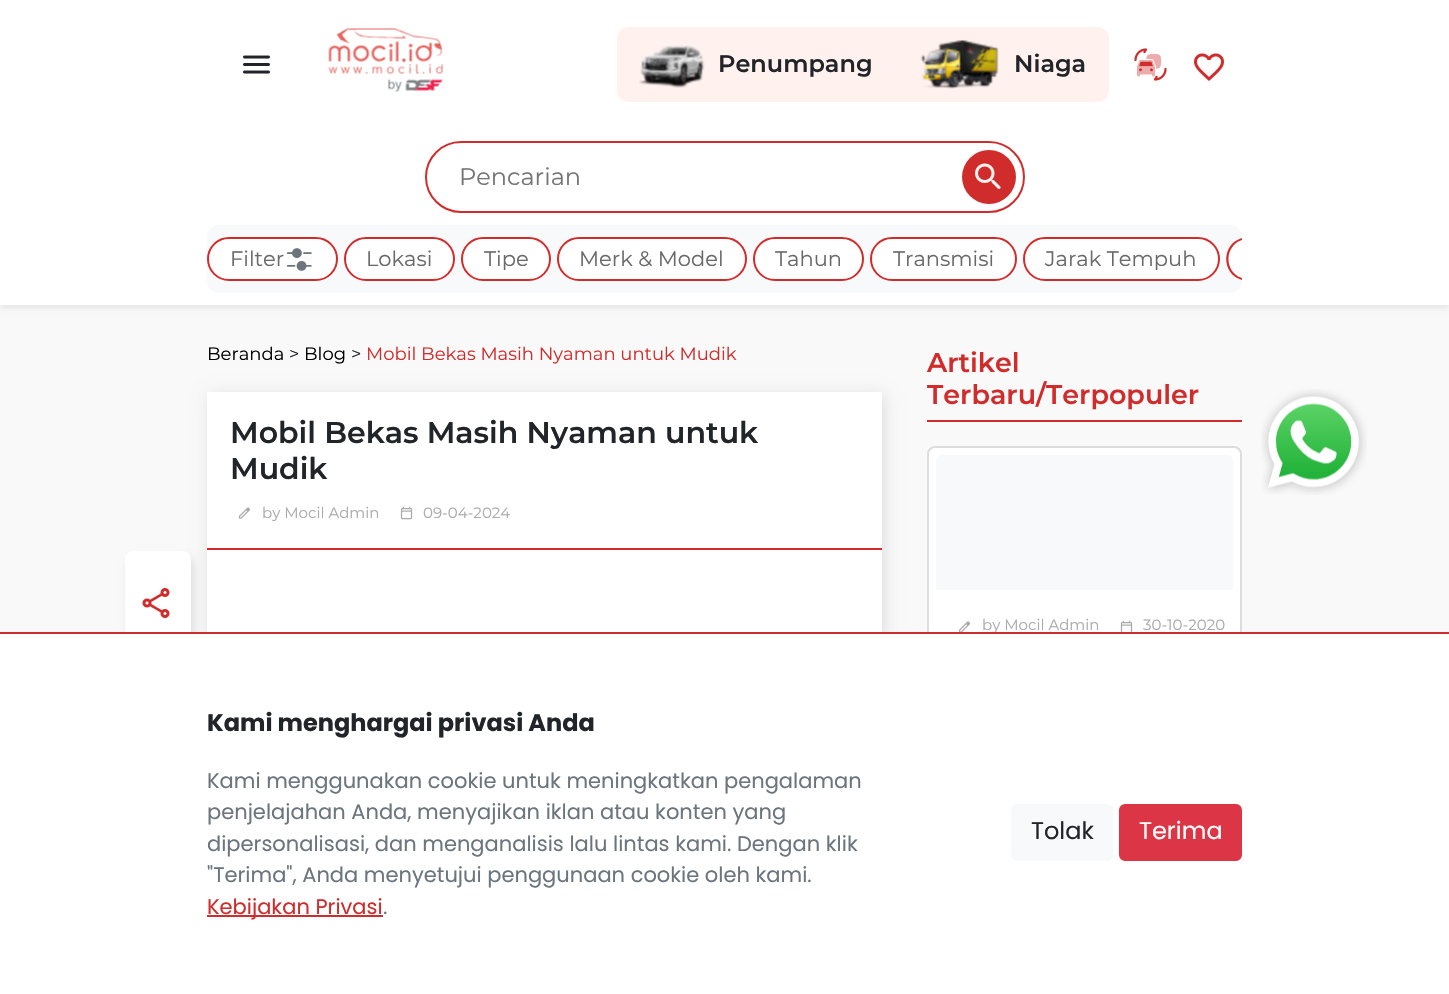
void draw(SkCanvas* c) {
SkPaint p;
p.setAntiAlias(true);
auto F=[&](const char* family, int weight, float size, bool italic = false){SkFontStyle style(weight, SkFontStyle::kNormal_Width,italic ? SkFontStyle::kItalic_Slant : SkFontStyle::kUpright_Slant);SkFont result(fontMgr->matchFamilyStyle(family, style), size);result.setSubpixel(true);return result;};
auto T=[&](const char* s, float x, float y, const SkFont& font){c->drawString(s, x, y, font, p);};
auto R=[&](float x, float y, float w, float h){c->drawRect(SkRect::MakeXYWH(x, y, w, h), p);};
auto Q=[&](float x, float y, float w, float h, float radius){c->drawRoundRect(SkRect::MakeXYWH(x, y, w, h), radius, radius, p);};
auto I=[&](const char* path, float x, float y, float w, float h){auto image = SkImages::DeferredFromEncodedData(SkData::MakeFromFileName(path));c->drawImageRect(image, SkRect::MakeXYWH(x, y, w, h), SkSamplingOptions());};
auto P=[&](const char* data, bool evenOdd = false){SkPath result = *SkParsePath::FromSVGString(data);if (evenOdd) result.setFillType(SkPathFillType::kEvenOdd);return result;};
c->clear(0xfff9f9f9);
p.setColor(0x14000000);
p.setMaskFilter(SkMaskFilter::MakeBlur(kNormal_SkBlurStyle, 3));
c->drawRect(SkRect::MakeXYWH(0,3,1449,305),p);
p.setMaskFilter(nullptr);
p.setColor(0xffffffff);
R(0,0,1449,305);
I("1.png",243,55,27,19);
I("2.png",328,28,115,64);
p.setColor(0xfffff1ee);
Q(617,27,492,75,12);
I("3.png",639,45,66,43);
auto f1 = F("Montserrat",600,24);
p.setColor(0xff212529);
T("Penumpang",718,72,f1);
I("4.png",920,40,79,49);
T("Niaga",1014,72,f1);
I("5.png",1134,48,33,33);
I("6.png",1194,53,30,28);
p.setStroke(true);
p.setStrokeWidth(2);
p.setColor(0xffd12c2c);
c->drawRoundRect(SkRect::MakeXYWH(426,142,598,70),35,35,p);
auto f2 = F("Montserrat",400,24);
p.setStroke(false);
p.setColor(0xff757575);
T("Pencarian",459,185,f2);
p.setColor(0xffd12c2c);
c->drawCircle(989,177,27,p);
I("7.png",975,163,26,26);
p.setColor(0xfff8f9fa);
Q(207,225,1035,68,12);
p.setColor(0xffffffff);
c->drawRoundRect(SkRect::MakeXYWH(208,238,129,42),21,21,p);
p.setStroke(true);
p.setColor(0xffd12c2c);
c->drawRoundRect(SkRect::MakeXYWH(208,238,129,42),21,21,p);
auto f3 = F("Montserrat",400,21);
p.setStroke(false);
p.setColor(0xff696969);
T("Filter",230,266,f3);
I("8.png",286,248,26,23);
p.setColor(0xffffffff);
c->drawRoundRect(SkRect::MakeXYWH(345,238,109,42),21,21,p);
p.setStroke(true);
p.setColor(0xffd12c2c);
c->drawRoundRect(SkRect::MakeXYWH(345,238,109,42),21,21,p);
p.setStroke(false);
p.setColor(0xff696969);
T("Lokasi",366,266,f3);
p.setColor(0xffffffff);
c->drawRoundRect(SkRect::MakeXYWH(462,238,88,42),21,21,p);
p.setStroke(true);
p.setColor(0xffd12c2c);
c->drawRoundRect(SkRect::MakeXYWH(462,238,88,42),21,21,p);
p.setStroke(false);
p.setColor(0xff696969);
T("Tipe",484,266,f3);
p.setColor(0xffffffff);
c->drawRoundRect(SkRect::MakeXYWH(558,238,188,42),21,21,p);
p.setStroke(true);
p.setColor(0xffd12c2c);
c->drawRoundRect(SkRect::MakeXYWH(558,238,188,42),21,21,p);
p.setStroke(false);
p.setColor(0xff696969);
T("Merk & Model",579,266,f3);
p.setColor(0xffffffff);
c->drawRoundRect(SkRect::MakeXYWH(754,238,109,42),21,21,p);
p.setStroke(true);
p.setColor(0xffd12c2c);
c->drawRoundRect(SkRect::MakeXYWH(754,238,109,42),21,21,p);
p.setStroke(false);
p.setColor(0xff696969);
T("Tahun",775,266,f3);
p.setColor(0xffffffff);
c->drawRoundRect(SkRect::MakeXYWH(871,238,145,42),21,21,p);
p.setStroke(true);
p.setColor(0xffd12c2c);
c->drawRoundRect(SkRect::MakeXYWH(871,238,145,42),21,21,p);
p.setStroke(false);
p.setColor(0xff696969);
T("Transmisi",893,266,f3);
p.setColor(0xffffffff);
c->drawRoundRect(SkRect::MakeXYWH(1024,238,195,42),21,21,p);
p.setStroke(true);
p.setColor(0xffd12c2c);
c->drawRoundRect(SkRect::MakeXYWH(1024,238,195,42),21,21,p);
p.setStroke(false);
p.setColor(0xff696969);
T("Jarak Tempuh",1045,266,f3);
p.setColor(0xffffffff);
c->drawPath(P("M1248 237h-6v44h6c-12 0-22-10-22-22c0-12 10-22 22-22z"),p);
p.setColor(0xffd12c2c);
c->drawPath(P("M1242 238c-21 6-21 36 0 42v-2c-18-6-18-32 0-38z"),p);
auto f4 = F("Montserrat",400,18);
p.setColor(0xff000000);
T("Beranda",207,360,f4);
p.setColor(0xff212529);
T(">",289,360,f4);
p.setColor(0xff000000);
T("Blog",304,360,f4);
p.setColor(0xff212529);
T(">",351,360,f4);
p.setColor(0xffd12c2c);
T("Mobil Bekas Masih Nyaman untuk Mudik",366,360,f4);
p.setColor(0xffdddddd);
p.setMaskFilter(SkMaskFilter::MakeBlur(kNormal_SkBlurStyle, 7.5));
c->drawRect(SkRect::MakeXYWH(209,395,675,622),p);
p.setMaskFilter(nullptr);
p.setColor(0xffffffff);
R(207,392,675,240);
auto f5 = F("Montserrat",600,30);
p.setColor(0xff212529);
T("Mobil Bekas Masih Nyaman untuk",230,443,f5);
T("Mudik",230,479,f5);
I("9.png",238,507,13,12);
auto f6 = F("Montserrat",400,15);
p.setColor(0xffaaaaaa);
T("by Mocil Admin",262,518,f6);
I("10.png",400,506,13,14);
T("09-04-2024",423,518,f6);
p.setColor(0xffdddddd);
p.setMaskFilter(SkMaskFilter::MakeBlur(kNormal_SkBlurStyle, 4));
c->drawRoundRect(SkRect::MakeXYWH(128,558,66,308),8,8,p);
p.setMaskFilter(nullptr);
p.setColor(0xffffffff);
Q(125,551,66,307,8);
I("11.png",142,588,28,30);
p.setColor(0xffd12c2c);
R(207,548,675,2);
R(927,420,315,2);
auto f7 = F("Montserrat",600,27);
T("Artikel",927,372,f7);
T("Terbaru/Terpopuler",927,404,f7);
p.setColor(0xffffffff);
c->drawRoundRect(SkRect::MakeXYWH(928,447,313,332),7,7,p);
p.setStroke(true);
p.setColor(0xffdddddd);
c->drawRoundRect(SkRect::MakeXYWH(928,447,313,332),7,7,p);
p.setStroke(false);
p.setColor(0xfff8f9fa);
c->drawPath(P("M942 455h285c3.5 0 6 2.5 6 6v129h-297v-129c0-3.5 2.5-6 6-6z"),p);
I("12.png",958,621,13,11);
p.setColor(0xffaaaaaa);
T("by Mocil Admin",982,630,f6);
I("13.png",1120,620,13,12);
T("30-10-2020",1143,630,f6);
I("14.png",1261,389,106,106);
p.setColor(0xffffffff);
R(0,634,1449,360);
p.setColor(0xffd12c2c);
R(0,632,1449,2);
auto f8 = F("Poppins",700,24);
p.setColor(0xff212529);
T("Kami menghargai privasi Anda",207,731,f8);
auto f9 = F("Poppins",400,21);
p.setColor(0xff6c757d);
T("Kami menggunakan cookie untuk meningkatkan pengalaman",207,788,f9);
T("penjelajahan Anda, menyajikan iklan atau konten yang",207,819,f9);
T("dipersonalisasi, dan menganalisis lalu lintas kami. Dengan klik",207,851,f9);
T("\"Terima\", Anda menyetujui penggunaan cookie oleh kami.",207,882,f9);
p.setColor(0xffd12c2c);
R(207,915,176,2);
T("Kebijakan Privasi",207,914,f9);
p.setColor(0xff6c757d);
T(".",383,914,f9);
p.setColor(0xfff8f9fa);
Q(1011,804,102,57,6);
auto f10 = F("Poppins",400,24);
p.setColor(0xff212529);
T("Tolak",1031,839,f10);
p.setColor(0xffdc3545);
c->drawRoundRect(SkRect::MakeXYWH(1120,805,121,55),5,5,p);
p.setStroke(true);
c->drawRoundRect(SkRect::MakeXYWH(1120,805,121,55),5,5,p);
p.setStroke(false);
p.setColor(0xffffffff);
T("Terima",1139,839,f10);
}
